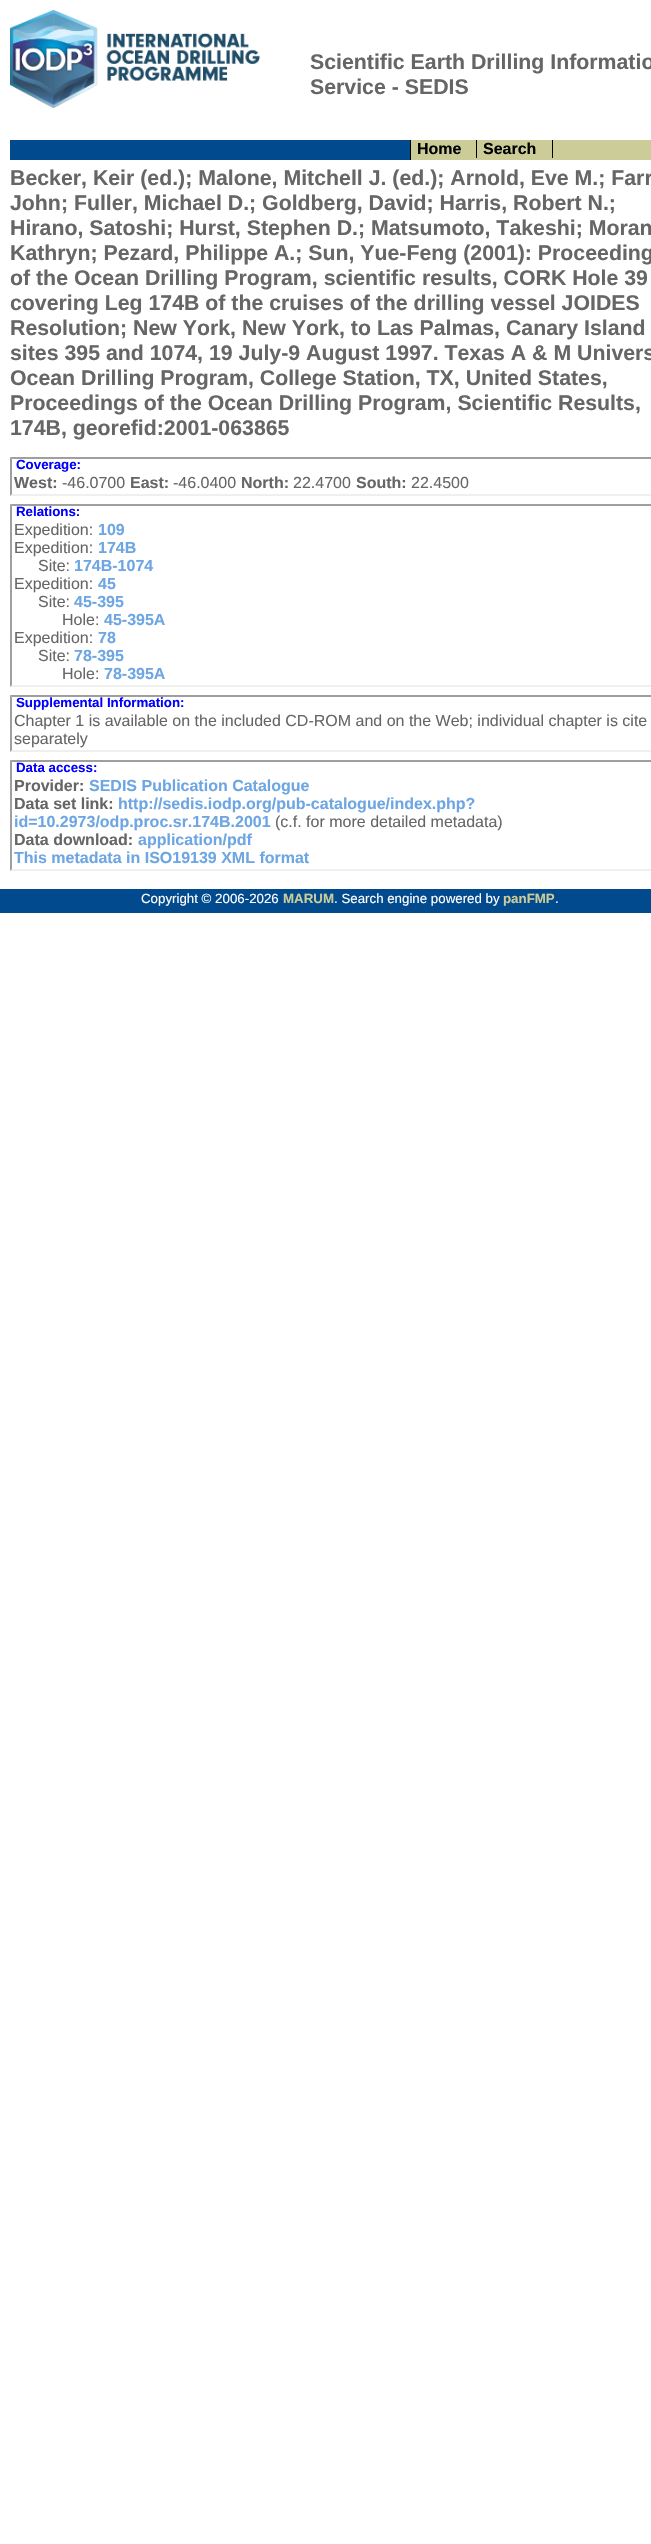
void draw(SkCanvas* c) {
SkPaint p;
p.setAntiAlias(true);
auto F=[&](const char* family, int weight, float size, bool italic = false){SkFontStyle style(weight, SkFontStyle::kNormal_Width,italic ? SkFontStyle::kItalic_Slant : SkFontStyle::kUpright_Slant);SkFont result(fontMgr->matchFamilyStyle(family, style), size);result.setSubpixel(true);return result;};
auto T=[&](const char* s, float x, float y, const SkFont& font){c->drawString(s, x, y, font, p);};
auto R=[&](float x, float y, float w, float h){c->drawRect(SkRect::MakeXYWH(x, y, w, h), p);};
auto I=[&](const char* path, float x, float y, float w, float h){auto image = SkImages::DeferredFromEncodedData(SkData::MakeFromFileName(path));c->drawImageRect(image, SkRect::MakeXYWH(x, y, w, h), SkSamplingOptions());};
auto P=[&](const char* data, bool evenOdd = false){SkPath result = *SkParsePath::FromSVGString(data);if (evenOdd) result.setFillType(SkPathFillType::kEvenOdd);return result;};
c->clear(0xffffffff);
I("1.png",10,10,250,98);
auto f1 = F("Liberation Sans",700,21.3);
p.setColor(0xff666666);
T("Scientific Earth Drilling Informatio",310,69,f1);
T("Service - SEDIS",310,94,f1);
p.setColor(0xff004a8d);
R(10,140,400,20);
p.setColor(0xffcccc99);
R(411,140,240,20);
p.setColor(0xff000000);
R(410,140,1,20);
R(476,140,1,18);
auto f2 = F("Liberation Sans",700,16);
T("Home",417,154,f2);
R(552,140,1,18);
T("Search",483,154,f2);
p.setColor(0xff666666);
T("Becker, Keir (ed.); Malone, Mitchell J. (ed.); Arnold, Eve M.; Farr",10,185,f1);
T("John; Fuller, Michael D.; Goldberg, David; Harris, Robert N.;",10,210,f1);
T("Hirano, Satoshi; Hurst, Stephen D.; Matsumoto, Takeshi; Moran",10,235,f1);
T("Kathryn; Pezard, Philippe A.; Sun, Yue-Feng (2001): Proceeding",10,260,f1);
T("of the Ocean Drilling Program, scientific results, CORK Hole 39",10,285,f1);
T("covering Leg 174B of the cruises of the drilling vessel JOIDES",10,310,f1);
T("Resolution; New York, New York, to Las Palmas, Canary Island",10,335,f1);
T("sites 395 and 1074, 19 July-9 August 1997. Texas A & M Univers",10,360,f1);
T("Ocean Drilling Program, College Station, TX, United States,",10,385,f1);
T("Proceedings of the Ocean Drilling Program, Scientific Results,",10,410,f1);
T("174B, georefid:2001-063865",10,435,f1);
p.setColor(0xff9f9f9f);
c->drawPath(P("M10 457h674l-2 2h-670z"),p);
p.setColor(0xffefefef);
c->drawPath(P("M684 496h-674l2-2h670z"),p);
p.setColor(0xff9f9f9f);
c->drawPath(P("M10 496v-39l2 2v35z"),p);
auto f3 = F("Liberation Sans",700,13.3);
p.setColor(0xff0000ff);
T("Coverage:",16,469,f3);
p.setColor(0xff666666);
T("West:",14,488,f2);
auto f4 = F("Liberation Sans",400,16);
T("-46.0700",62,488,f4);
T("East:",130,488,f2);
T("-46.0400",173,488,f4);
T("North:",241,488,f2);
T("22.4700",293,488,f4);
T("South:",356,488,f2);
T("22.4500",411,488,f4);
p.setColor(0xff9f9f9f);
c->drawPath(P("M10 504h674l-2 2h-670z"),p);
p.setColor(0xffefefef);
c->drawPath(P("M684 687h-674l2-2h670z"),p);
p.setColor(0xff9f9f9f);
c->drawPath(P("M10 687v-183l2 2v179z"),p);
p.setColor(0xff0000ff);
T("Relations:",16,516,f3);
p.setColor(0xff666666);
T("Expedition:",14,535,f4);
p.setColor(0xff6da6e2);
T("109",98,535,f2);
p.setColor(0xff666666);
T("Expedition:",14,553,f4);
p.setColor(0xff6da6e2);
T("174B",98,553,f2);
p.setColor(0xff666666);
T("Site:",38,571,f4);
p.setColor(0xff6da6e2);
T("174B-1074",74,571,f2);
p.setColor(0xff666666);
T("Expedition:",14,589,f4);
p.setColor(0xff6da6e2);
T("45",98,589,f2);
p.setColor(0xff666666);
T("Site:",38,607,f4);
p.setColor(0xff6da6e2);
T("45-395",74,607,f2);
p.setColor(0xff666666);
T("Hole:",62,625,f4);
p.setColor(0xff6da6e2);
T("45-395A",104,625,f2);
p.setColor(0xff666666);
T("Expedition:",14,643,f4);
p.setColor(0xff6da6e2);
T("78",98,643,f2);
p.setColor(0xff666666);
T("Site:",38,661,f4);
p.setColor(0xff6da6e2);
T("78-395",74,661,f2);
p.setColor(0xff666666);
T("Hole:",62,679,f4);
p.setColor(0xff6da6e2);
T("78-395A",104,679,f2);
p.setColor(0xff9f9f9f);
c->drawPath(P("M10 695h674l-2 2h-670z"),p);
p.setColor(0xffefefef);
c->drawPath(P("M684 752h-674l2-2h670z"),p);
p.setColor(0xff9f9f9f);
c->drawPath(P("M10 752v-57l2 2v53z"),p);
p.setColor(0xff0000ff);
T("Supplemental Information:",16,707,f3);
p.setColor(0xff666666);
T("Chapter 1 is available on the included CD-ROM and on the Web; individual chapter is cite",14,726,f4);
T("separately",14,744,f4);
p.setColor(0xff9f9f9f);
c->drawPath(P("M10 760h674l-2 2h-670z"),p);
p.setColor(0xffefefef);
c->drawPath(P("M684 871h-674l2-2h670z"),p);
p.setColor(0xff9f9f9f);
c->drawPath(P("M10 871v-111l2 2v107z"),p);
p.setColor(0xff0000ff);
T("Data access:",16,772,f3);
p.setColor(0xff666666);
T("Provider:",14,791,f2);
p.setColor(0xff6da6e2);
T("SEDIS Publication Catalogue",89,791,f2);
p.setColor(0xff666666);
T("Data set link:",14,809,f2);
p.setColor(0xff6da6e2);
T("http://sedis.iodp.org/pub-catalogue/index.php?",118,809,f2);
T("id=10.2973/odp.proc.sr.174B.2001",14,827,f2);
p.setColor(0xff666666);
T("(c.f. for more detailed metadata)",275,827,f4);
T("Data download:",14,845,f2);
p.setColor(0xff6da6e2);
T("application/pdf",138,845,f2);
T("This metadata in ISO19139 XML format",14,863,f2);
p.setColor(0xff004a8d);
R(0,889,651,24);
auto f5 = F("Liberation Sans",400,13.3);
p.setColor(0xffffffff);
T("Copyright © 2006-2026",141,903,f5);
p.setColor(0xffcccc99);
T("MARUM",283,903,f3);
p.setColor(0xffffffff);
T(". Search engine powered by",334,903,f5);
p.setColor(0xffcccc99);
T("panFMP",503,903,f3);
p.setColor(0xffffffff);
T(".",555,903,f5);
}
